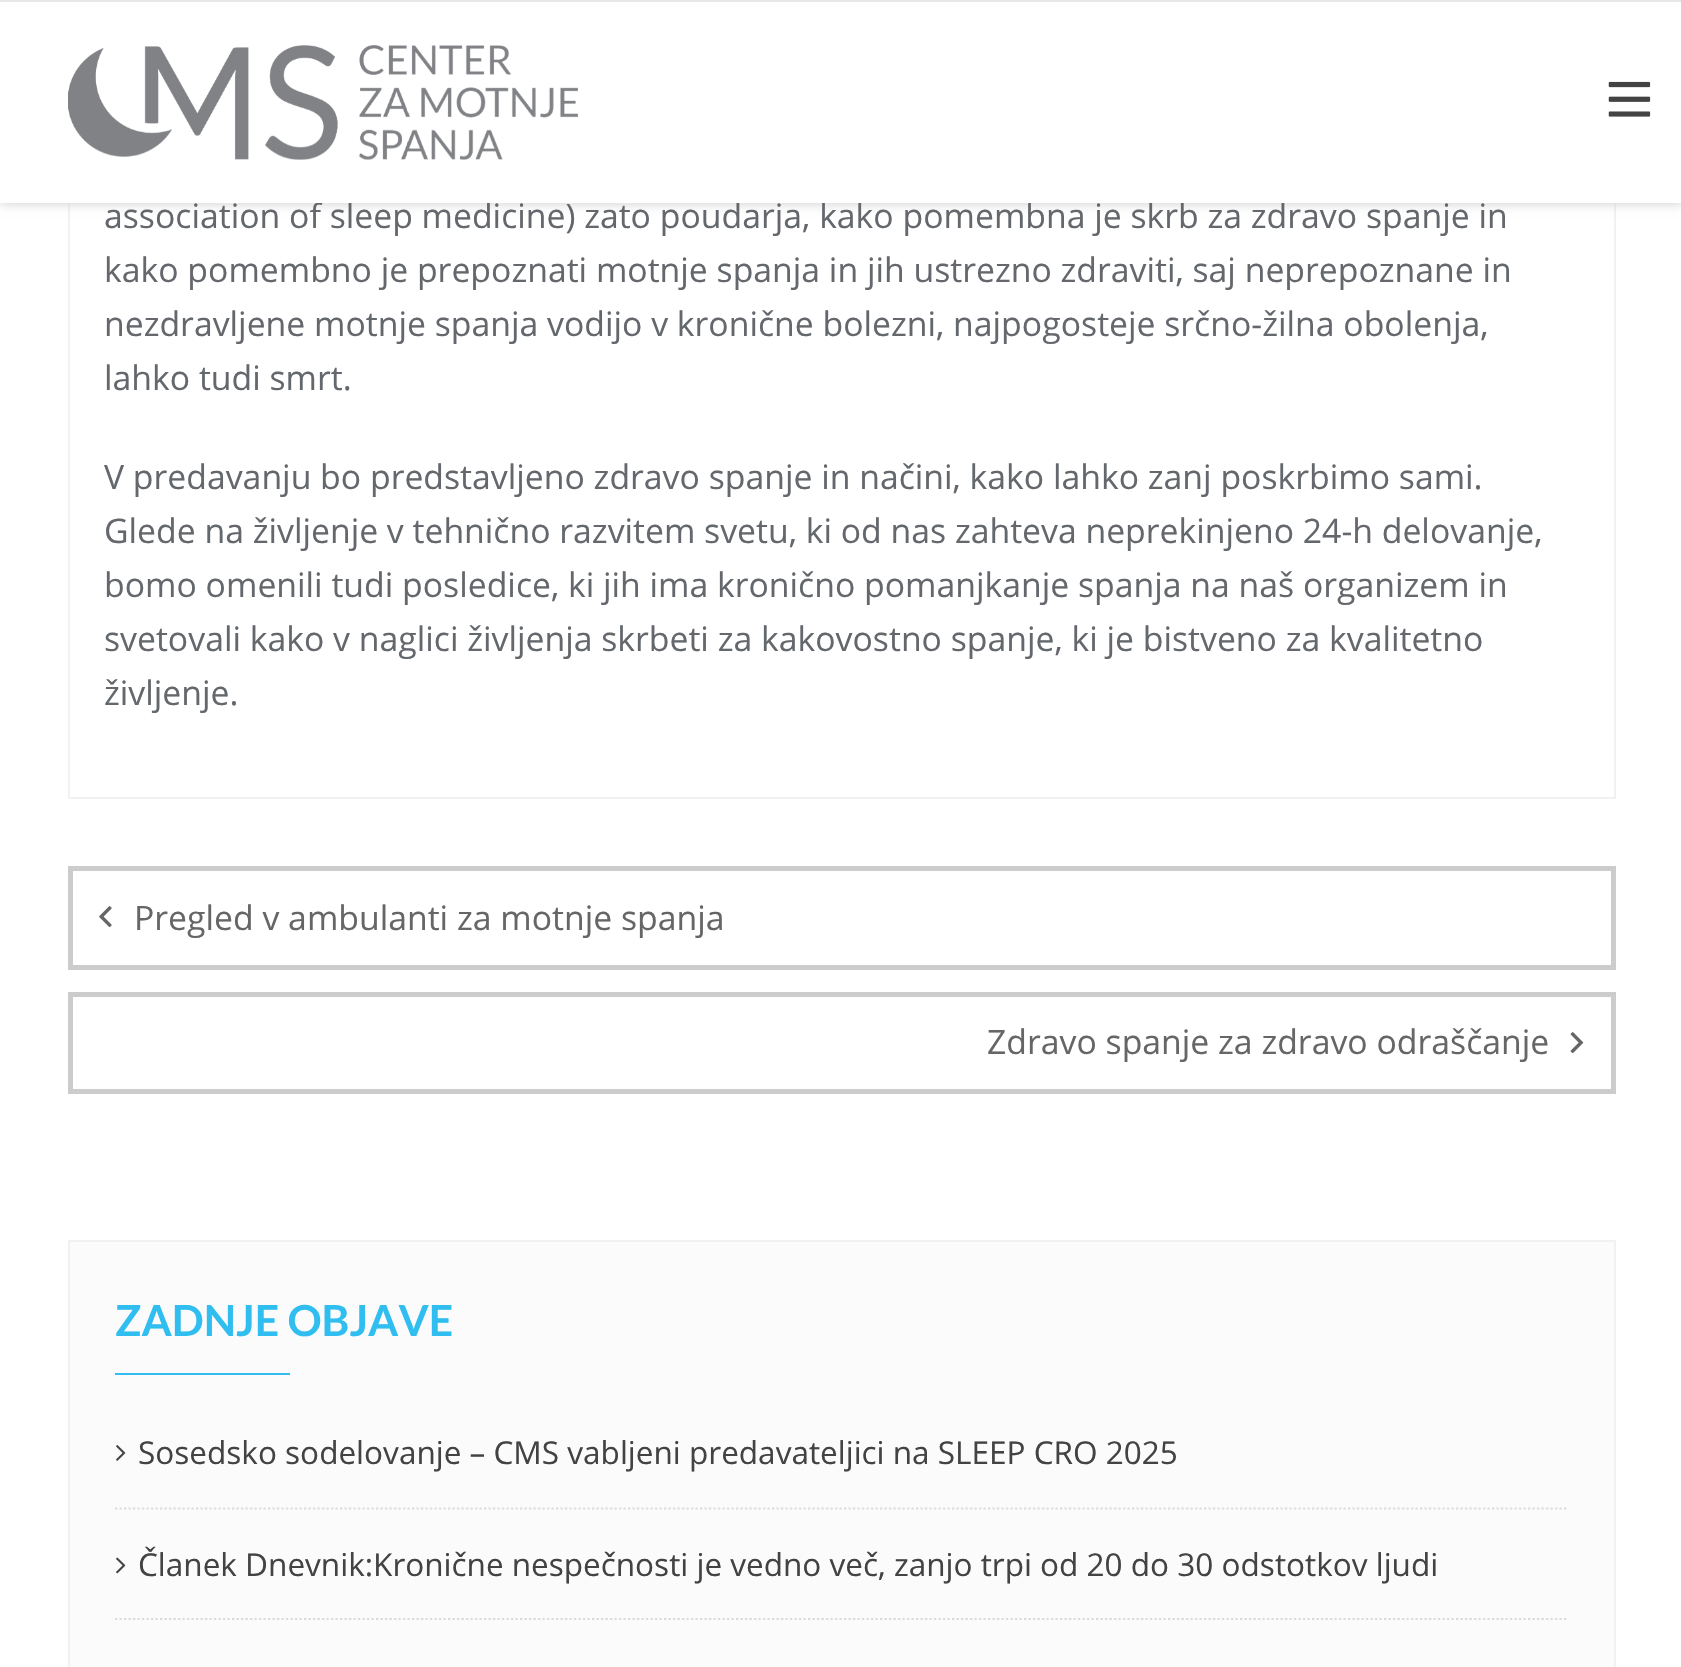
void draw(SkCanvas* c) {
SkPaint p;
p.setAntiAlias(true);
auto F=[&](const char* family, int weight, float size, bool italic = false){SkFontStyle style(weight, SkFontStyle::kNormal_Width,italic ? SkFontStyle::kItalic_Slant : SkFontStyle::kUpright_Slant);SkFont result(fontMgr->matchFamilyStyle(family, style), size);result.setSubpixel(true);return result;};
auto T=[&](const char* s, float x, float y, const SkFont& font){c->drawString(s, x, y, font, p);};
auto R=[&](float x, float y, float w, float h){c->drawRect(SkRect::MakeXYWH(x, y, w, h), p);};
auto I=[&](const char* path, float x, float y, float w, float h){auto image = SkImages::DeferredFromEncodedData(SkData::MakeFromFileName(path));c->drawImageRect(image, SkRect::MakeXYWH(x, y, w, h), SkSamplingOptions());};
auto P=[&](const char* data, bool evenOdd = false){SkPath result = *SkParsePath::FromSVGString(data);if (evenOdd) result.setFillType(SkPathFillType::kEvenOdd);return result;};
c->clear(0xffffffff);
p.setStroke(true);
p.setStrokeWidth(2);
p.setColor(0xfff1f1f1);
c->drawRect(SkRect::MakeXYWH(69,-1,1546,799),p);
p.setStroke(false);
p.setColor(0xffcccccc);
p.setMaskFilter(SkMaskFilter::MakeBlur(kNormal_SkBlurStyle, 5.5));
c->drawRect(SkRect::MakeXYWH(0,0,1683,203),p);
p.setMaskFilter(nullptr);
auto f1 = F("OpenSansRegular",400,33.75);
p.setColor(0xff64686d);
T("association of sleep medicine) zato poudarja, kako pomembna je skrb za zdravo spanje in",104,228,f1);
p.setColor(0xffffffff);
R(0,2,1681,201);
p.setColor(0xffe7e7e7);
R(0,0,1681,2);
I("1.png",68,45,510,115);
I("2.png",1608,81,43,36);
p.setColor(0xff64686d);
T("kako pomembno je prepoznati motnje spanja in jih ustrezno zdraviti, saj neprepoznane in",104,282,f1);
T("nezdravljene motnje spanja vodijo v kronične bolezni, najpogosteje srčno-žilna obolenja,",104,336,f1);
T("lahko tudi smrt.",104,390,f1);
T("V predavanju bo predstavljeno zdravo spanje in načini, kako lahko zanj poskrbimo sami.",104,489,f1);
T("Glede na življenje v tehnično razvitem svetu, ki od nas zahteva neprekinjeno 24-h delovanje,",104,543,f1);
T("bomo omenili tudi posledice, ki jih ima kronično pomanjkanje spanja na naš organizem in",104,597,f1);
T("svetovali kako v naglici življenja skrbeti za kakovostno spanje, ki je bistveno za kvalitetno",104,651,f1);
T("življenje.",104,705,f1);
p.setStroke(true);
p.setStrokeWidth(5);
p.setColor(0xffcccccc);
c->drawRect(SkRect::MakeXYWH(70.5,868.5,1543,99),p);
I("3.png",99,906,13,22);
p.setStroke(false);
p.setColor(0xff666666);
T("Pregled v ambulanti za motnje spanja",134,930,f1);
p.setStroke(true);
p.setColor(0xffcccccc);
c->drawRect(SkRect::MakeXYWH(70.5,994.5,1543,97),p);
p.setStroke(false);
p.setColor(0xff666666);
T("Zdravo spanje za zdravo odraščanje",987,1054,f1);
I("4.png",1570,1032,14,22);
p.setColor(0xfffbfbfb);
c->drawRect(SkRect::MakeXYWH(69,1241,1546,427),p);
p.setStroke(true);
p.setStrokeWidth(2);
p.setColor(0xfff1f1f1);
c->drawRect(SkRect::MakeXYWH(69,1241,1546,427),p);
auto f2 = F("Lato",700,42.75);
p.setStroke(false);
p.setColor(0xff2fbeef);
T("ZADNJE OBJAVE",115,1336,f2);
R(115,1373,175,2);
p.setStroke(true);
p.setStrokeWidth(2.2);
p.setColor(0xffdbdbdb);
p.setPathEffect(SkDashPathEffect::Make({{2.25f,2.25f}}, 0));
c->drawPath(P("M115 1508.5h1453"),p);
p.setPathEffect(nullptr);
I("5.png",116,1445,10,16);
auto f3 = F("OpenSansRegular",400,31.5);
p.setStroke(false);
p.setColor(0xff434343);
T("Sosedsko sodelovanje – CMS vabljeni predavateljici na SLEEP CRO 2025",138,1464,f3);
p.setStroke(true);
p.setColor(0xffdbdbdb);
p.setPathEffect(SkDashPathEffect::Make({{2.25f,2.25f}}, 0));
c->drawPath(P("M115 1619h1453"),p);
p.setPathEffect(nullptr);
I("6.png",116,1557,10,17);
p.setStroke(false);
p.setColor(0xff434343);
T("Članek Dnevnik:Kronične nespečnosti je vedno več, zanjo trpi od 20 do 30 odstotkov ljudi",138,1576,f3);
}
